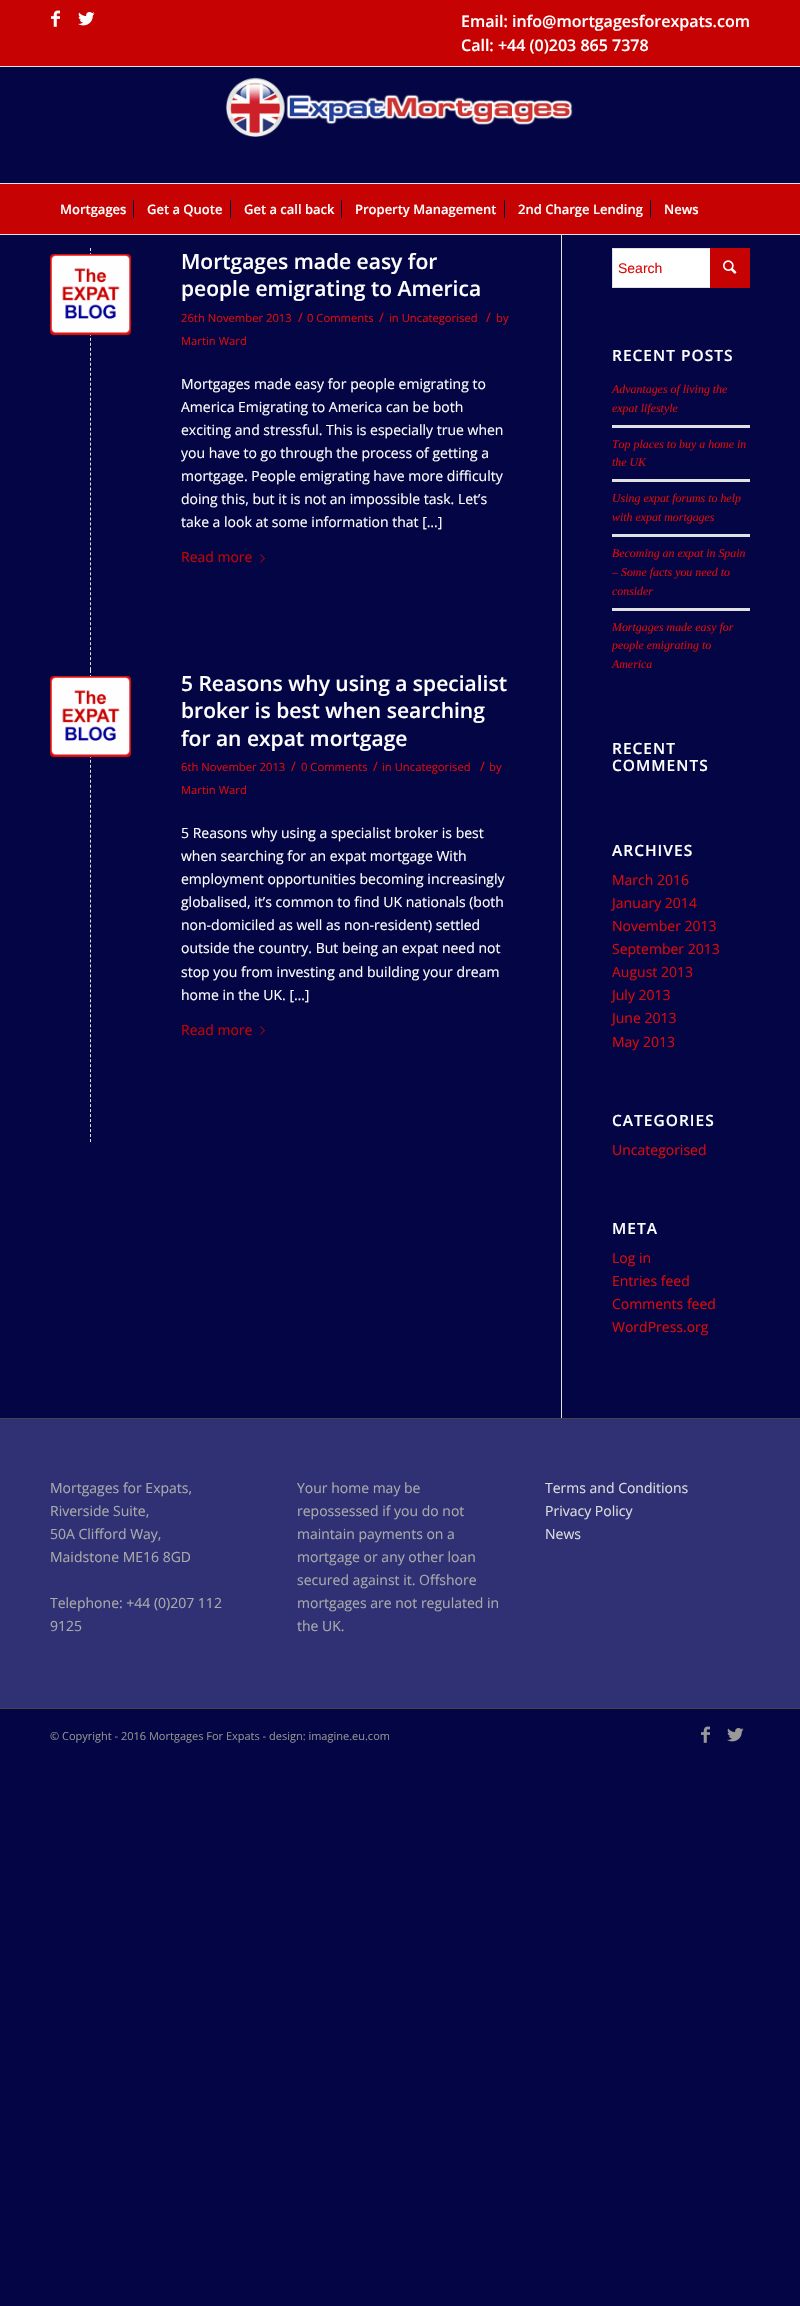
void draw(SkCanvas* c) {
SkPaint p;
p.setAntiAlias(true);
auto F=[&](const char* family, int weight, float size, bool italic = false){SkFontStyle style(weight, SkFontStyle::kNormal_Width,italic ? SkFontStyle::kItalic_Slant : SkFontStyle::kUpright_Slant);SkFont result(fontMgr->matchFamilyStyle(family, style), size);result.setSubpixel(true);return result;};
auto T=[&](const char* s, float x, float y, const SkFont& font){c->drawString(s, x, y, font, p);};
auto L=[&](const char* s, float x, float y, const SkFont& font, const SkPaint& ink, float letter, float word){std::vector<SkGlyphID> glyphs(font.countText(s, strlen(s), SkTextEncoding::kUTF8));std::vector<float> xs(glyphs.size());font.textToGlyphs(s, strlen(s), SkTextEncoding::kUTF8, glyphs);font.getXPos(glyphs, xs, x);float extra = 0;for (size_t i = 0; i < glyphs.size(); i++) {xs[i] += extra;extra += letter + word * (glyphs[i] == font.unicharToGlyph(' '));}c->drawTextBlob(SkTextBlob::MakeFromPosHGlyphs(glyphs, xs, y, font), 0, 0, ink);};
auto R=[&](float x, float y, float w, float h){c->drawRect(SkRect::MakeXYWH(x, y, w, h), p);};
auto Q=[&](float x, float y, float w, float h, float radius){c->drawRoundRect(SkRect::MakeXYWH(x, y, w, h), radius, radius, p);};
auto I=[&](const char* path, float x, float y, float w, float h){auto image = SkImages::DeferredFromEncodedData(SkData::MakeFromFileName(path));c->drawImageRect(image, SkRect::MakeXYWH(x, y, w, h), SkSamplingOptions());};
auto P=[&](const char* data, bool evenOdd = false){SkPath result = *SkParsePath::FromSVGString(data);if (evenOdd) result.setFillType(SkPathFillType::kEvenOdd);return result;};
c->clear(0xff040544);
p.setColor(0xffc70202);
R(0,0,800,66);
I("1.png",51,10,9,17);
I("2.png",78,12,17,14);
auto f1 = F("Open Sans",600,16);
p.setColor(0xffffffff);
T("Email: info@mortgagesforexpats.com",461,27,f1);
T("Call: +44 (0)203 865 7378",461,51,f1);
p.setColor(0xffe1e1e1);
R(0,66,800,1);
R(0,234,800,1);
I("3.png",225,77,348,60);
p.setColor(0xffc70202);
R(0,184,800,50);
p.setColor(0xffe1e1e1);
R(0,183,800,1);
auto f2 = F("Open Sans",600,13);
p.setColor(0xffffffff);
T("Mortgages",60,214,f2);
T("Get a Quote",147,214,f2);
p.setColor(0xff040544);
R(133,200,1,18);
p.setColor(0xffffffff);
T("Get a call back",244,214,f2);
p.setColor(0xff040544);
R(230,200,1,18);
p.setColor(0xffffffff);
T("Property Management",355,214,f2);
p.setColor(0xff040544);
R(341,200,1,18);
p.setColor(0xffffffff);
T("2nd Charge Lending",518,214,f2);
p.setColor(0xff040544);
R(504,200,1,18);
p.setColor(0xffffffff);
T("News",664,214,f2);
p.setColor(0xff040544);
R(650,200,1,18);
p.setStroke(true);
p.setStrokeWidth(1);
p.setColor(0xffe1e1e1);
p.setPathEffect(SkDashPathEffect::Make({{3,1.99f}}, 0));
c->drawPath(P("M90.5 248v422"),p);
p.setPathEffect(nullptr);
auto f3 = F("Open Sans",600,21);
p.setStroke(false);
p.setColor(0xffffffff);
T("Mortgages made easy for",181,269,f3);
T("people emigrating to America",181,296,f3);
auto f4 = F("Open Sans",400,11.25);
p.setColor(0xffdb0909);
T("26th November 2013",181,322,f4);
auto f5 = F("Open Sans",400,13);
T("/",298,322,f5);
T("0 Comments",307,322,f4);
T("/",379,322,f5);
T("in Uncategorised",389,322,f4);
T("/",486,322,f5);
T("by",496,322,f4);
T("Martin Ward",181,345,f4);
auto f6 = F("Open Sans",400,14);
p.setColor(0xffffffff);
T("Mortgages made easy for people emigrating to",181,389,f6);
T("America Emigrating to America can be both",181,412,f6);
T("exciting and stressful. This is especially true when",181,435,f6);
T("you have to go through the process of getting a",181,458,f6);
T("mortgage. People emigrating have more difficulty",181,481,f6);
T("doing this, but it is not an impossible task. Let’s",181,504,f6);
T("take a look at some information that […]",181,527,f6);
p.setColor(0xffc70202);
T("Read more",181,562,f6);
I("4.png",260,554,5,9);
p.setColor(0xffdb0909);
Q(50,254,81,81,4);
I("5.png",51,255,79,79);
p.setStroke(true);
p.setColor(0xffe1e1e1);
p.setPathEffect(SkDashPathEffect::Make({{3,1.99f}}, 0));
c->drawPath(P("M90.5 670v472"),p);
p.setPathEffect(nullptr);
p.setStroke(false);
p.setColor(0xffffffff);
T("5 Reasons why using a specialist",181,691,f3);
T("broker is best when searching",181,718,f3);
T("for an expat mortgage",181,746,f3);
p.setColor(0xffdb0909);
T("6th November 2013",181,771,f4);
T("/",291,771,f5);
T("0 Comments",301,771,f4);
T("/",373,771,f5);
T("in Uncategorised",382,771,f4);
T("/",480,771,f5);
T("by",489,771,f4);
T("Martin Ward",181,794,f4);
p.setColor(0xffffffff);
T("5 Reasons why using a specialist broker is best",181,838,f6);
T("when searching for an expat mortgage With",181,861,f6);
T("employment opportunities becoming increasingly",181,884,f6);
T("globalised, it’s common to find UK nationals (both",181,907,f6);
T("non-domiciled as well as non-resident) settled",181,930,f6);
T("outside the country. But being an expat need not",181,953,f6);
T("stop you from investing and building your dream",181,977,f6);
T("home in the UK. […]",181,1000,f6);
p.setColor(0xffc70202);
T("Read more",181,1035,f6);
I("4.png",260,1026,5,9);
p.setColor(0xffdb0909);
Q(50,676,81,81,4);
I("5.png",51,677,79,79);
p.setColor(0xffe1e1e1);
R(561,235,1,1183);
p.setColor(0xffffffff);
R(613,249,97,38);
p.setStroke(true);
p.setColor(0xffe1e1e1);
c->drawRect(SkRect::MakeXYWH(612.5,248.5,137,39),p);
auto f7 = F("Liberation Sans",400,14);
p.setStroke(false);
p.setColor(0xffdb0909);
T("Search",618,273,f7);
p.setColor(0xffc70202);
R(710,248,40,40);
I("6.png",723,260,14,14);
auto f8 = F("Open Sans",600,15.5);
p.setColor(0xffffffff);
L("RECENT POSTS",612,361,f8,p,1,0);
auto f9 = F("Liberation Serif",400,11.9,true);
p.setColor(0xffdb0909);
T("Advantages of living the",612,393,f9);
T("expat lifestyle",612,412,f9);
p.setColor(0xffe1e1e1);
R(612,425,138,3);
p.setColor(0xffdb0909);
T("Top places to buy a home in",612,448,f9);
T("the UK",612,466,f9);
p.setColor(0xffe1e1e1);
R(612,479,138,3);
p.setColor(0xffdb0909);
T("Using expat forums to help",612,502,f9);
T("with expat mortgages",612,521,f9);
p.setColor(0xffe1e1e1);
R(612,534,138,3);
p.setColor(0xffdb0909);
T("Becoming an expat in Spain",612,557,f9);
T("– Some facts you need to",612,576,f9);
T("consider",612,595,f9);
p.setColor(0xffe1e1e1);
R(612,608,138,3);
p.setColor(0xffdb0909);
T("Mortgages made easy for",612,631,f9);
T("people emigrating to",612,649,f9);
T("America",612,668,f9);
p.setColor(0xffffffff);
L("RECENT",612,754,f8,p,1,0);
L("COMMENTS",612,771,f8,p,1,0);
L("ARCHIVES",612,856,f8,p,1,0);
p.setColor(0xffdb0909);
T("March 2016",612,885,f6);
T("January 2014",612,908,f6);
T("November 2013",612,931,f6);
T("September 2013",612,954,f6);
T("August 2013",612,977,f6);
T("July 2013",612,1000,f6);
T("June 2013",612,1023,f6);
T("May 2013",612,1047,f6);
p.setColor(0xffffffff);
L("CATEGORIES",612,1126,f8,p,1,0);
p.setColor(0xffdb0909);
T("Uncategorised",612,1155,f6);
p.setColor(0xffffffff);
L("META",612,1234,f8,p,1,0);
p.setColor(0xffdb0909);
T("Log in",612,1263,f6);
T("Entries feed",612,1286,f6);
T("Comments feed",612,1309,f6);
T("WordPress.org",612,1332,f6);
p.setColor(0xff303175);
R(0,1419,800,289);
p.setColor(0xff444444);
R(0,1418,800,1);
p.setColor(0xffaaaaaa);
T("Mortgages for Expats,",50,1493,f6);
T("Riverside Suite,",50,1516,f6);
T("50A Clifford Way,",50,1539,f6);
T("Maidstone ME16 8GD",50,1562,f6);
T("Telephone: +44 (0)207 112",50,1608,f6);
T("9125",50,1631,f6);
T("Your home may be",297,1493,f6);
T("repossessed if you do not",297,1516,f6);
T("maintain payments on a",297,1539,f6);
T("mortgage or any other loan",297,1562,f6);
T("secured against it. Offshore",297,1585,f6);
T("mortgages are not regulated in",297,1608,f6);
T("the UK.",297,1631,f6);
p.setColor(0xffdddddd);
T("Terms and Conditions",545,1493,f6);
T("Privacy Policy",545,1516,f6);
T("News",545,1539,f6);
p.setColor(0xff444444);
R(0,1708,800,1);
auto f10 = F("Open Sans",400,11);
p.setColor(0xff919191);
T("© Copyright - 2016 Mortgages For Expats - design: imagine.eu.com",50,1740,f10);
I("7.png",701,1726,9,17);
I("8.png",727,1728,17,14);
}
